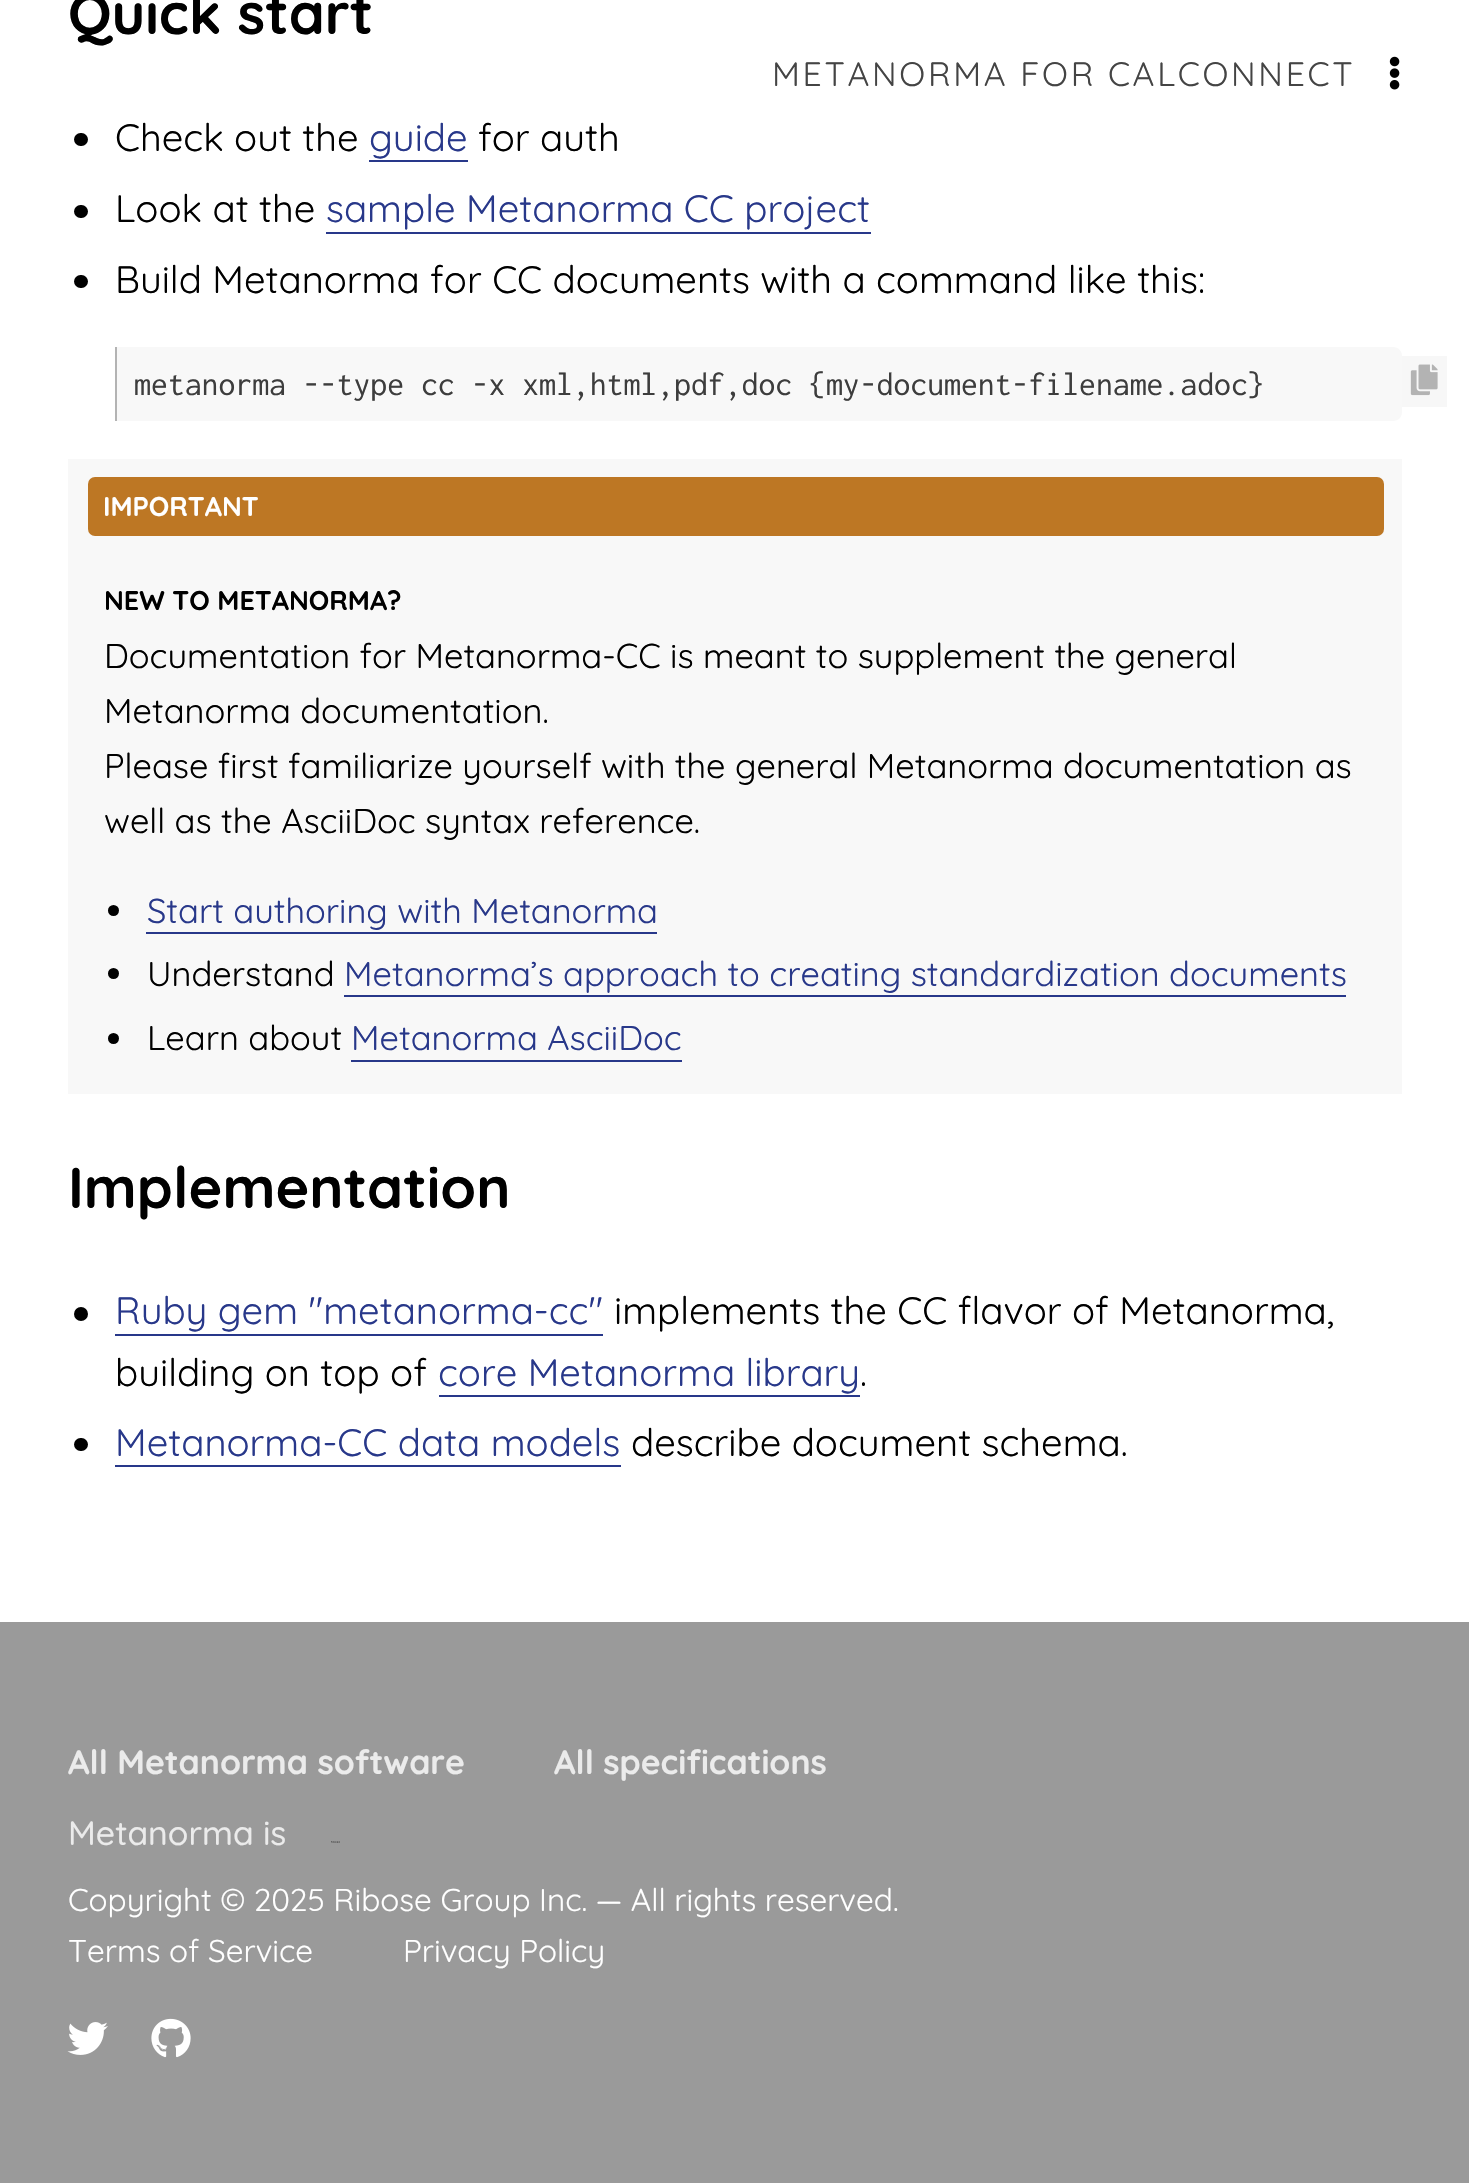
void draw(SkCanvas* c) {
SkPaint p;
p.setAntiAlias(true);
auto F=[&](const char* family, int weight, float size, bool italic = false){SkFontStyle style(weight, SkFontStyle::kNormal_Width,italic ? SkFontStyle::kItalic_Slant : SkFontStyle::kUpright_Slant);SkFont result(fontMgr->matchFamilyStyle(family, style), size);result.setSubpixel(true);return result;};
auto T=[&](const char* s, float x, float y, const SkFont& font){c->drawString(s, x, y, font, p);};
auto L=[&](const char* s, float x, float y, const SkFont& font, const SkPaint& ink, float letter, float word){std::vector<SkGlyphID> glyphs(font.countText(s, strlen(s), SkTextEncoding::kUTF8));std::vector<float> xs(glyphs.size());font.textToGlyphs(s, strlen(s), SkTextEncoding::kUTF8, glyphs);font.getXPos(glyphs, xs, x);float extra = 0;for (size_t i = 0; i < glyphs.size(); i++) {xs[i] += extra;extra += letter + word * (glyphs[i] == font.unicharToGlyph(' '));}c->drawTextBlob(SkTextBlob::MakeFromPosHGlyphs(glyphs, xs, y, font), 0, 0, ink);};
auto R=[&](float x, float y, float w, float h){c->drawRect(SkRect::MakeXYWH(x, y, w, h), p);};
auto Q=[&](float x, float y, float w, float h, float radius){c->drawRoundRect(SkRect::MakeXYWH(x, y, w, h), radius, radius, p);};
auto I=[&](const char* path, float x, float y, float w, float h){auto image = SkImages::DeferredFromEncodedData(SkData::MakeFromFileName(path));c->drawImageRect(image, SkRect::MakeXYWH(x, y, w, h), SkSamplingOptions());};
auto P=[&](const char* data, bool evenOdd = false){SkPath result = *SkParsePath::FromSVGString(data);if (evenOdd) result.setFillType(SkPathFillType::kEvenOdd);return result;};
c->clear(0xffffffff);
auto f1 = F("Quicksand",700,57.5);
p.setColor(0xff000000);
T("Quick start",68,34,f1);
Q(74,133,14,13,6.5);
auto f2 = F("Quicksand",400,38.25);
T("Check out the",115,151,f2);
p.setColor(0xff28388a);
T("guide",369,151,f2);
R(369,160,99,2);
p.setColor(0xff000000);
T("for auth",478,151,f2);
Q(74,205,14,13,6.5);
T("Look at the",115,222,f2);
p.setColor(0xff28388a);
T("sample Metanorma CC project",326,222,f2);
R(326,232,545,2);
p.setColor(0xff000000);
Q(74,275,14,13,6.5);
T("Build Metanorma for CC documents with a command like this:",115,293,f2);
p.setColor(0xfff8f8f8);
c->drawPath(P("M115 347h1278c5 0 9 4 9 9v56c0 5-4 9-9 9h-1278z"),p);
p.setColor(0xffb3b3b3);
R(115,347,2,74);
auto f3 = F("Inconsolata",400,33.75);
p.setColor(0xff3d3d3d);
T("metanorma --type cc -x xml,html,pdf,doc {my-document-filename.adoc}",134,395,f3);
p.setColor(0xfff7f7f7);
R(1402,356,45,51);
I("1.png",1410,364,28,32);
p.setColor(0xfff8f8f8);
R(68,459,1334,635);
p.setColor(0xffbd7724);
Q(88,477,1296,59,7);
auto f4 = F("Quicksand",700,27);
p.setColor(0xffffffff);
T("IMPORTANT",103,516,f4);
p.setColor(0xff000000);
T("NEW TO METANORMA?",104,610,f4);
auto f5 = F("Quicksand",400,34.45);
T("Documentation for Metanorma-CC is meant to supplement the general",104,668,f5);
T("Metanorma documentation.",104,723,f5);
T("Please first familiarize yourself with the general Metanorma documentation as",104,778,f5);
T("well as the AsciiDoc syntax reference.",104,833,f5);
c->drawCircle(113.5,910.5,5.5,p);
p.setColor(0xff28388a);
T("Start authoring with Metanorma",147,923,f5);
R(146,932,511,2);
p.setColor(0xff000000);
c->drawCircle(113.5,973.5,5.5,p);
T("Understand",147,986,f5);
p.setColor(0xff28388a);
T("Metanorma’s approach to creating standardization documents",344,986,f5);
R(344,995,1002,2);
p.setColor(0xff000000);
c->drawCircle(113.5,1038.5,5.5,p);
T("Learn about",147,1050,f5);
p.setColor(0xff28388a);
T("Metanorma AsciiDoc",351,1050,f5);
R(351,1060,331,2);
p.setColor(0xff000000);
T("Implementation",68,1208,f1);
c->drawCircle(81,1314,7,p);
p.setColor(0xff28388a);
T("Ruby gem \"metanorma-cc\"",115,1324,f2);
R(115,1334,488,2);
p.setColor(0xff000000);
T("implements the CC flavor of Metanorma,",614,1324,f2);
T("building on top of",115,1386,f2);
p.setColor(0xff28388a);
T("core Metanorma library",438,1386,f2);
R(439,1395,421,2);
p.setColor(0xff000000);
T(".",860,1386,f2);
Q(74,1438,14,13,6.5);
p.setColor(0xff28388a);
T("Metanorma-CC data models",115,1456,f2);
R(115,1465,506,2);
p.setColor(0xff000000);
T("describe document schema.",631,1456,f2);
auto f6 = F("Quicksand",400,33.75);
p.setColor(0xff444444);
L("METANORMA FOR CALCONNECT",772,86,f6,p,2.7,0);
I("2.png",1389,56,11,34);
p.setColor(0xff9a9a9a);
R(0,1622,1469,561);
auto f7 = F("Quicksand",700,33.75);
p.setColor(0xffebebeb);
T("All Metanorma software",68,1774,f7);
T("All specifications",554,1774,f7);
auto f8 = F("Quicksand",500,33.75);
T("Metanorma is",68,1845,f8);
I("3.png",331,1841,9,2);
auto f9 = F("Quicksand",400,31.5);
p.setColor(0xffffffff);
T("Copyright © 2025 Ribose Group Inc. — All rights reserved.",68,1911,f9);
T("Terms of Service",68,1962,f9);
T("Privacy Policy",403,1962,f9);
I("4.png",67,2022,41,33);
I("5.png",151,2018,40,40);
}
